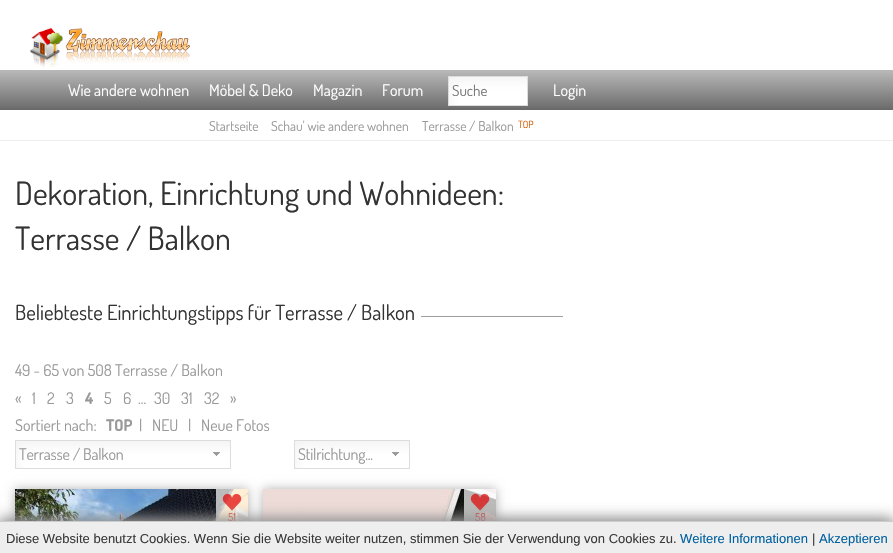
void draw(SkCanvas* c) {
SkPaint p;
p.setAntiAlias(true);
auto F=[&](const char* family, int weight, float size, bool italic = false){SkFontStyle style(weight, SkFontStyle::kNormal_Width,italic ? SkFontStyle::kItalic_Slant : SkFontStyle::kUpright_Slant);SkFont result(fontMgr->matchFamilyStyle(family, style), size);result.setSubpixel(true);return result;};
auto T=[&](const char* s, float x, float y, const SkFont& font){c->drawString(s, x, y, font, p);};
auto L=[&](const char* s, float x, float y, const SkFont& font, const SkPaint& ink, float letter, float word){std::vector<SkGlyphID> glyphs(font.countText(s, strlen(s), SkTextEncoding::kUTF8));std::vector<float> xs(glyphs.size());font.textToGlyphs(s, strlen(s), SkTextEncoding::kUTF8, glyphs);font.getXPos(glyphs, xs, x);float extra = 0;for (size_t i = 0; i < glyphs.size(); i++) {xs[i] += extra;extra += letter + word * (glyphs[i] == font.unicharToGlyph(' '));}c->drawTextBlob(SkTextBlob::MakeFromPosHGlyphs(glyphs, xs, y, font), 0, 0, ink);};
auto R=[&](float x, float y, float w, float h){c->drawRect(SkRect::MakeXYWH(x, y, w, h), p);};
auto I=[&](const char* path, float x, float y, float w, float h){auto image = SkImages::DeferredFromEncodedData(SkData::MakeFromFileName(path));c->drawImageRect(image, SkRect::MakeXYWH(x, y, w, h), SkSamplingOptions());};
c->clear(0xffffffff);
I("1.png",30,28,160,40);
p.setColor(0xff6a6a6a);
R(0,108,893,2);
I("2.png",0,70,893,38);
I("3.png",10,70,48,38);
I("4.png",58,70,141,38);
auto f1 = F("Dosis",400,16);
p.setColor(0xffffffff);
T("Wie andere wohnen",68,96,f1);
I("5.png",199,70,104,38);
T("Möbel & Deko",209,96,f1);
I("6.png",303,70,69,38);
T("Magazin",313,96,f1);
I("7.png",372,70,61,38);
T("Forum",382,96,f1);
I("8.png",433,70,110,38);
R(449,77,78,28);
I("9.png",449,77,78,28);
p.setStroke(true);
p.setStrokeWidth(1);
p.setColor(0xffdddddd);
c->drawRect(SkRect::MakeXYWH(448.5,76.5,79,29),p);
auto f2 = F("Dosis",400,15);
p.setStroke(false);
p.setColor(0xff757575);
T("Suche",452,96,f2);
I("10.png",543,70,53,38);
p.setColor(0xffffffff);
T("Login",553,96,f1);
p.setColor(0xffeeeeee);
R(0,140,893,1);
auto f3 = F("Dosis",400,13.6);
p.setColor(0xff999999);
T("Startseite",209,131,f3);
T("Schau' wie andere wohnen",271,131,f3);
T("Terrasse / Balkon",422,131,f3);
auto f4 = F("Dosis",400,10);
p.setColor(0xffd45a00);
T("TOP",518,128,f4);
auto f5 = F("Dosis",400,32);
p.setColor(0xff333333);
T("Dekoration, Einrichtung und Wohnideen:",15,205,f5);
T("Terrasse / Balkon",15,250,f5);
p.setColor(0xff9d9d9d);
R(421,316,142,1);
auto f6 = F("Dosis",400,20.75);
p.setColor(0xff333333);
T("Beliebteste Einrichtungstipps für Terrasse / Balkon",15,320,f6);
p.setColor(0xff999999);
T("49 - 65 von 508 Terrasse / Balkon",15,376,f1);
T("«",15,404,f1);
T("1",32,404,f1);
T("2",47,404,f1);
T("3",66,404,f1);
auto f7 = F("Dosis",700,16);
T("4",85,404,f7);
T("5",104,404,f1);
T("6",123,404,f1);
T("30",154,404,f1);
T("31",181,404,f1);
T("32",204,404,f1);
T("»",230,404,f1);
T("...",138,404,f1);
T("Sortiert nach:",15,431,f1);
T("TOP",106,431,f7);
T("|",139,431,f1);
T("NEU",152,431,f1);
T("|",188,431,f1);
T("Neue Fotos",201,431,f1);
I("11.png",16,441,214,27);
p.setStroke(true);
p.setColor(0xffdddddd);
c->drawRect(SkRect::MakeXYWH(15.5,440.5,215,28),p);
p.setStroke(false);
p.setColor(0xff999999);
L("Terrasse / Balkon",19,460,f1,p,-.2,0);
I("12.png",213,452,7,4);
I("13.png",295,441,114,27);
p.setStroke(true);
p.setColor(0xffdddddd);
c->drawRect(SkRect::MakeXYWH(294.5,440.5,115,28),p);
p.setStroke(false);
p.setColor(0xff999999);
L("Stilrichtung...",298,460,f1,p,-.2,0);
I("12.png",392,452,7,4);
p.setColor(0x4d000000);
p.setMaskFilter(SkMaskFilter::MakeBlur(kNormal_SkBlurStyle, 5));
c->drawRect(SkRect::MakeXYWH(15,489,233,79),p);
p.setMaskFilter(nullptr);
I("14.png",15,489,233,32);
p.setColor(0xb3ffffff);
R(216,489,32,32);
I("15.png",222,493,20,18);
auto f8 = F("Dosis",400,11);
p.setColor(0xffe84740);
T("51",228,521,f8);
p.setColor(0x4d000000);
p.setMaskFilter(SkMaskFilter::MakeBlur(kNormal_SkBlurStyle, 5));
c->drawRect(SkRect::MakeXYWH(263,489,233,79),p);
p.setMaskFilter(nullptr);
I("16.png",263,489,233,32);
p.setColor(0xb3ffffff);
R(464,489,32,32);
I("17.png",470,493,20,18);
p.setColor(0xffd83939);
T("58",475,521,f8);
p.setColor(0xff969696);
p.setMaskFilter(SkMaskFilter::MakeBlur(kNormal_SkBlurStyle, 7.5));
c->drawRect(SkRect::MakeXYWH(0,521,893,32),p);
p.setMaskFilter(nullptr);
p.setMaskFilter(SkMaskFilter::MakeBlur(kNormal_SkBlurStyle, 7.5));
c->drawRect(SkRect::MakeXYWH(0,521,893,32),p);
p.setMaskFilter(nullptr);
p.setColor(0xffeeeeee);
R(0,522,893,31);
p.setColor(0xffcccccc);
R(0,521,893,1);
auto f9 = F("Liberation Sans",400,13);
p.setColor(0xff3a3a3a);
T("Diese Website benutzt Cookies. Wenn Sie die Website weiter nutzen, stimmen Sie der Verwendung von Cookies zu.",6,543,f9);
p.setColor(0xff0061a0);
T("Weitere Informationen",680,543,f9);
p.setColor(0xff3a3a3a);
T("|",812,543,f9);
p.setColor(0xff0061a0);
T("Akzeptieren",819,543,f9);
}
